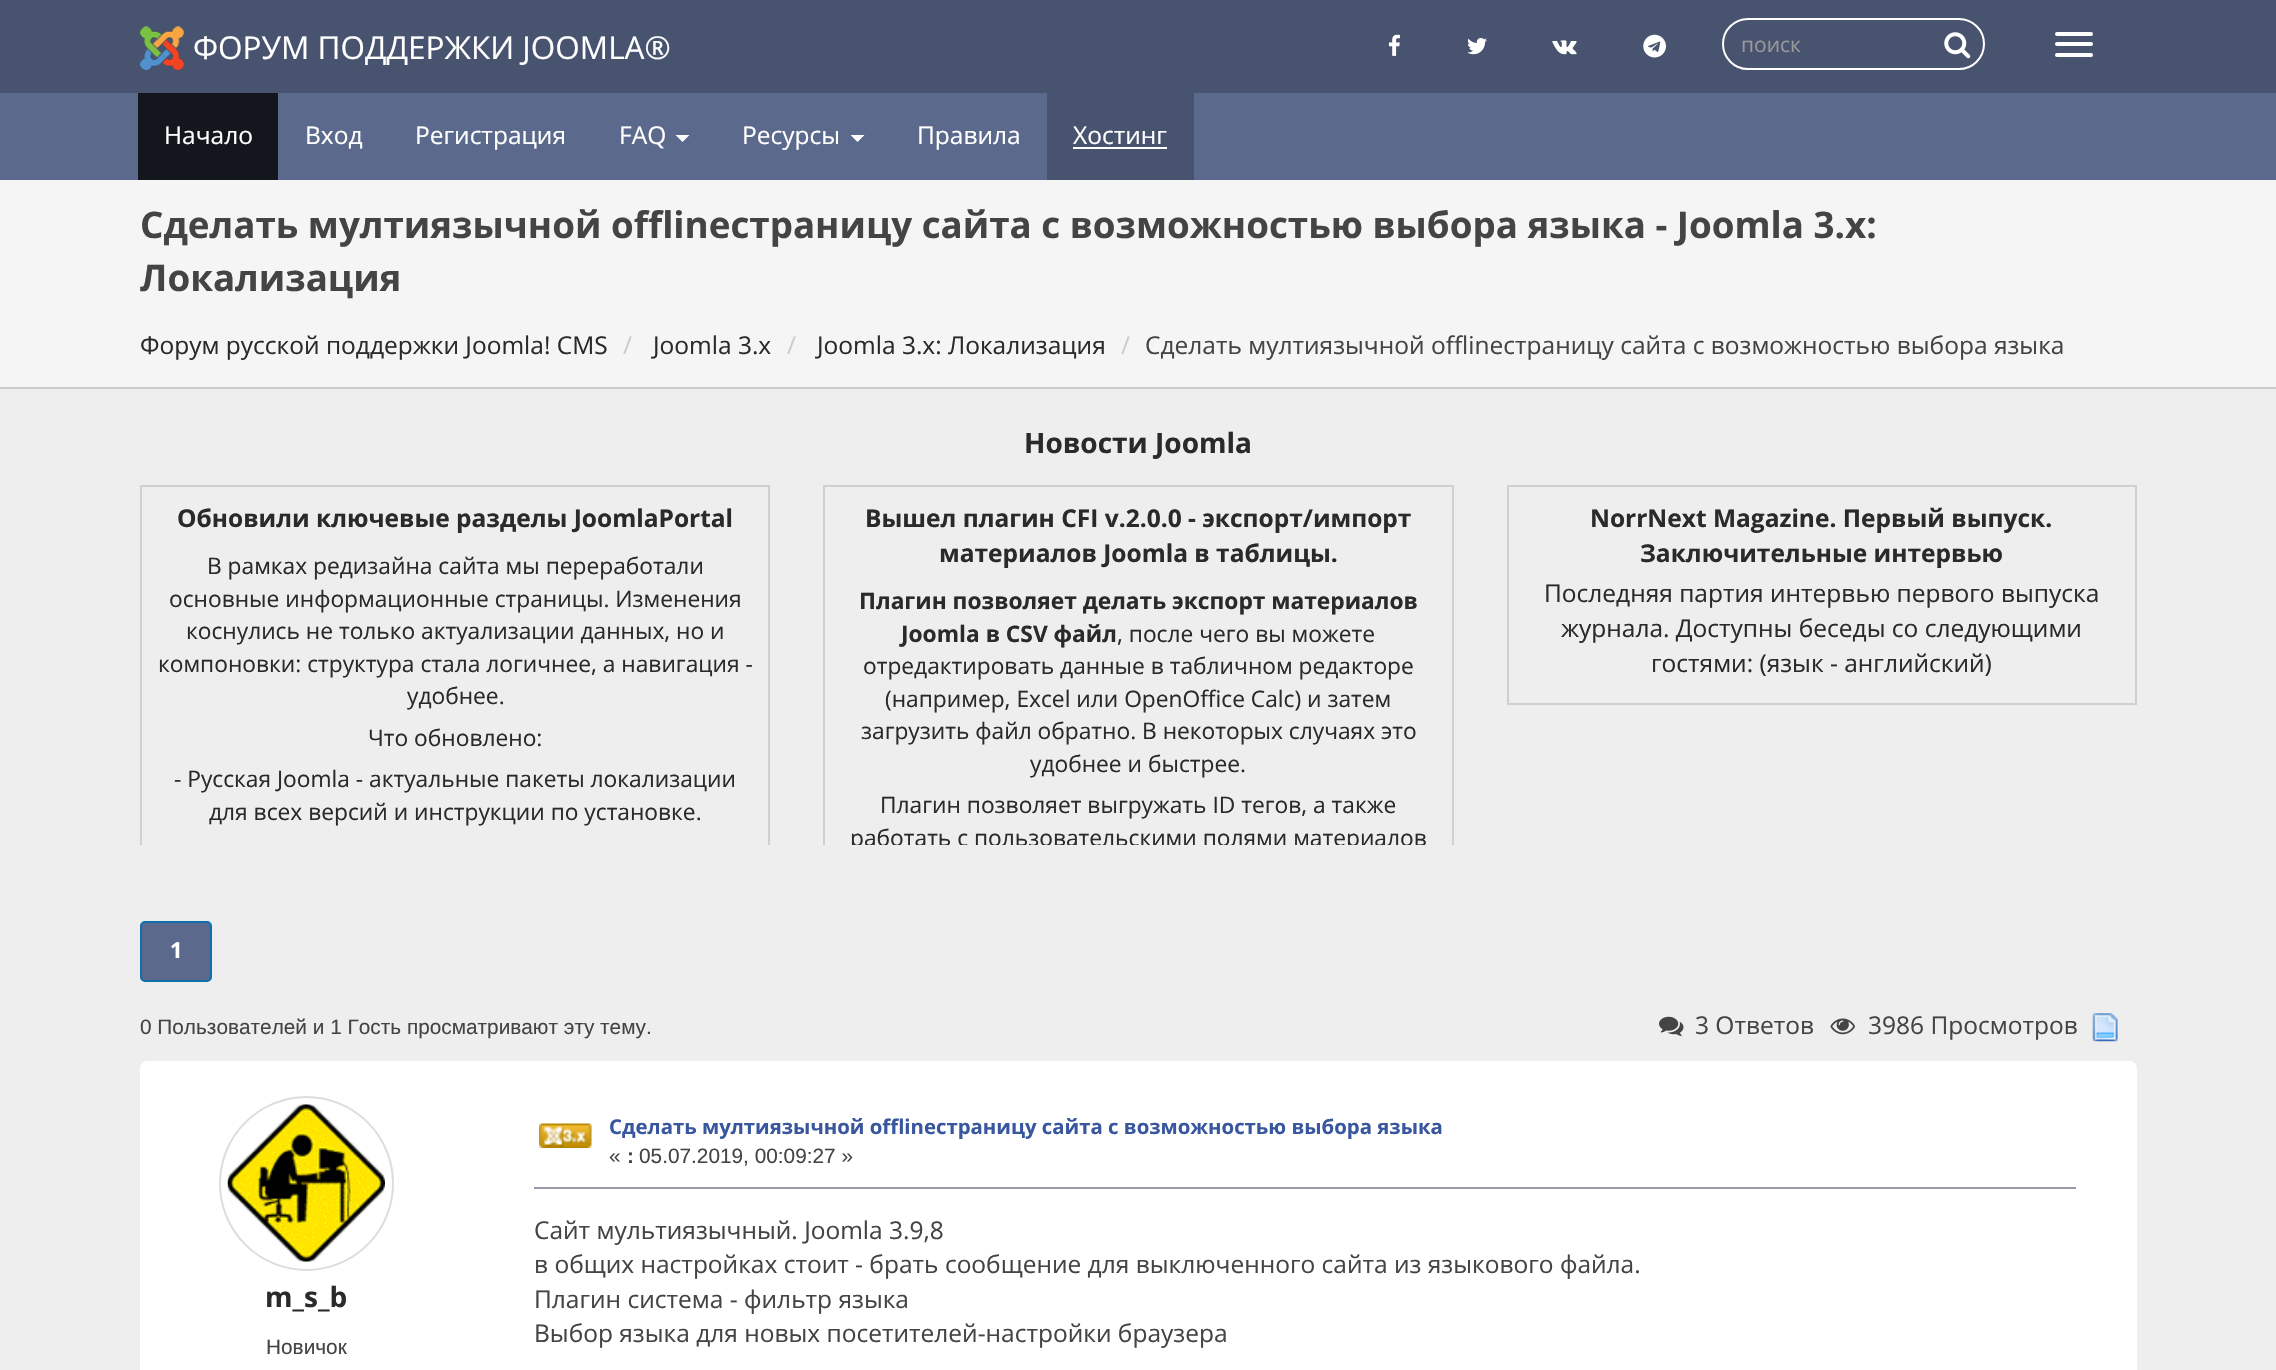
void draw(SkCanvas* c) {
SkPaint p;
p.setAntiAlias(true);
auto F=[&](const char* family, int weight, float size, bool italic = false){SkFontStyle style(weight, SkFontStyle::kNormal_Width,italic ? SkFontStyle::kItalic_Slant : SkFontStyle::kUpright_Slant);SkFont result(fontMgr->matchFamilyStyle(family, style), size);result.setSubpixel(true);return result;};
auto T=[&](const char* s, float x, float y, const SkFont& font){c->drawString(s, x, y, font, p);};
auto R=[&](float x, float y, float w, float h){c->drawRect(SkRect::MakeXYWH(x, y, w, h), p);};
auto Q=[&](float x, float y, float w, float h, float radius){c->drawRoundRect(SkRect::MakeXYWH(x, y, w, h), radius, radius, p);};
auto I=[&](const char* path, float x, float y, float w, float h){auto image = SkImages::DeferredFromEncodedData(SkData::MakeFromFileName(path));c->drawImageRect(image, SkRect::MakeXYWH(x, y, w, h), SkSamplingOptions());};
auto P=[&](const char* data, bool evenOdd = false){SkPath result = *SkParsePath::FromSVGString(data);if (evenOdd) result.setFillType(SkPathFillType::kEvenOdd);return result;};
c->clear(0xffeeeeee);
p.setColor(0xff48536f);
R(0,0,2276,93);
I("1.png",140,26,44,44);
auto f1 = F("Open Sans",400,31.5);
p.setColor(0xffffffff);
T("ФОРУМ ПОДДЕРЖКИ JOOMLA®",193,59,f1);
I("2.png",1388,34,12,22);
I("3.png",1467,38,20,17);
I("4.png",1552,40,25,15);
I("5.png",1643,34,23,24);
p.setStroke(true);
p.setStrokeWidth(2);
c->drawRoundRect(SkRect::MakeXYWH(1723,19,261,50),25,25,p);
auto f2 = F("Open Sans",400,21);
p.setStroke(false);
p.setColor(0xff999999);
T("поиск",1741,52,f2);
I("6.png",1944,32,27,27);
p.setColor(0xffffffff);
Q(2055,32,38,4,2);
Q(2055,42,38,4,2);
Q(2055,53,38,4,2);
p.setColor(0xff5b6a8c);
R(0,93,2276,87);
p.setColor(0xff13161c);
R(138,93,140,87);
auto f3 = F("Open Sans",400,24.5);
p.setColor(0xffffffff);
T("Начало",164,144,f3);
T("Вход",305,144,f3);
T("Регистрация",415,144,f3);
T("FAQ",619,144,f3);
c->drawPath(P("M675.5 135h14l-7 7z"),p);
T("Ресурсы",742,144,f3);
c->drawPath(P("M850.5 135h14l-7 7z"),p);
T("Правила",917,144,f3);
p.setColor(0xff48536f);
R(1047,93,147,87);
p.setColor(0xffffffff);
T("Хостинг",1073,144,f3);
R(1073,147,94,2);
p.setColor(0xfff5f5f5);
R(0,180,2276,207);
p.setColor(0xffcccccc);
R(0,387,2276,2);
auto f4 = F("Open Sans",700,36.75);
p.setColor(0xff444444);
T("Сделать мултиязычной offlineстраницу сайта с возможностью выбора языка - Joomla 3.x:",140,238,f4);
T("Локализация",140,291,f4);
p.setColor(0xff2a2a2a);
T("Форум русской поддержки Joomla! CMS",140,354,f3);
p.setColor(0xffcccccc);
T("/",623,354,f3);
p.setColor(0xff2a2a2a);
T("Joomla 3.x",653,354,f3);
p.setColor(0xffcccccc);
T("/",787,354,f3);
p.setColor(0xff2a2a2a);
T("Joomla 3.x: Локализация",817,354,f3);
p.setColor(0xffcccccc);
T("/",1121,354,f3);
p.setColor(0xff444444);
T("Сделать мултиязычной offlineстраницу сайта с возможностью выбора языка",1145,354,f3);
auto f5 = F("Open Sans",700,28);
p.setColor(0xff2a2a2a);
T("Новости Joomla",1024,453,f5);
p.setColor(0xff5b6a8c);
c->drawRoundRect(SkRect::MakeXYWH(141,922,70,59),4,4,p);
p.setStroke(true);
p.setColor(0xff0d6fac);
c->drawRoundRect(SkRect::MakeXYWH(141,922,70,59),4,4,p);
auto f6 = F("Liberation Sans",400,20.8);
p.setStroke(false);
p.setColor(0xff444444);
T("0 Пользователей и 1 Гость просматривают эту тему.",140,1034,f6);
p.setColor(0xffffffff);
Q(140,1061,1997,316,7);
c->save();
c->clipRect(SkRect::MakeXYWH(114,478,682,367));
p.setStroke(true);
p.setColor(0xffd0d0d0);
c->drawRect(SkRect::MakeXYWH(141,486,628,782),p);
c->restore();
auto f7 = F("Open Sans",700,24.5);
p.setStroke(false);
p.setColor(0xff2a2a2a);
T("Обновили ключевые разделы JoomlaPortal",177,527,f7);
auto f8 = F("Open Sans",400,22.75);
T("В рамках редизайна сайта мы переработали",207,574,f8);
T("основные информационные страницы. Изменения",169,607,f8);
T("коснулись не только актуализации данных, но и",186,639,f8);
T("компоновки: структура стала логичнее, а навигация -",158,672,f8);
T("удобнее.",407,704,f8);
T("Что обновлено:",368,746,f8);
T("- Русская Joomla - актуальные пакеты локализации",174,787,f8);
T("для всех версий и инструкции по установке.",209,820,f8);
c->save();
c->clipRect(SkRect::MakeXYWH(796,478,685,367));
p.setStroke(true);
p.setColor(0xffd0d0d0);
c->drawRect(SkRect::MakeXYWH(824,486,629,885),p);
c->restore();
p.setStroke(false);
p.setColor(0xff2a2a2a);
T("Вышел плагин CFI v.2.0.0 - экспорт/импорт",865,527,f7);
T("материалов Joomla в таблицы.",939,562,f7);
auto f9 = F("Open Sans",700,22.75);
T("Плагин позволяет делать экспорт материалов",859,609,f9);
T("Joomla в CSV файл",901,642,f9);
T(", после чего вы можете",1117,642,f8);
T("отредактировать данные в табличном редакторе",863,674,f8);
T("(например, Excel или OpenOffice Calc) и затем",885,707,f8);
T("загрузить файл обратно. В некоторых случаях это",861,739,f8);
T("удобнее и быстрее.",1030,772,f8);
T("Плагин позволяет выгружать ID тегов, а также",880,813,f8);
c->save();
c->clipRect(SkRect::MakeXYWH(796,478,685,367));
T("работать с пользовательскими полями материалов",850,846,f8);
c->restore();
p.setStroke(true);
p.setColor(0xffd0d0d0);
c->drawRect(SkRect::MakeXYWH(1508,486,628,218),p);
p.setStroke(false);
p.setColor(0xff2a2a2a);
T("NorrNext Magazine. Первый выпуск.",1590,527,f7);
T("Заключительные интервью",1640,562,f7);
T("Последняя партия интервью первого выпуска",1544,602,f3);
T("журнала. Доступны беседы со следующими",1561,637,f3);
T("гостями: (язык - английский)",1651,672,f3);
auto f10 = F("Open Sans",700,22);
p.setColor(0xffffffff);
T("1",170,958,f10);
I("7.png",1659,1016,25,20);
p.setColor(0xff444444);
T("3 Ответов",1695,1034,f3);
I("8.png",1830,1018,25,17);
T("3986 Просмотров",1868,1034,f3);
I("9.png",2092,1013,26,29);
p.setStroke(true);
p.setColor(0xffdddddd);
c->drawCircle(306.5,1183.5,86.5,p);
I("10.png",227,1104,158,158);
p.setStroke(false);
p.setColor(0xff2a2a2a);
T("m_s_b",265,1307,f5);
p.setColor(0xff444444);
T("Новичок",266,1354,f6);
I("11.png",539,1123,53,25);
auto f11 = F("Open Sans",700,20.35);
p.setColor(0xff38579f);
T("Сделать мултиязычной offlineстраницу сайта с возможностью выбора языка",609,1134,f11);
p.setColor(0xff444444);
T("«",609,1163,f6);
auto f12 = F("Liberation Sans",700,20.8);
T(":",627,1163,f12);
T("05.07.2019, 00:09:27 »",639,1163,f6);
p.setColor(0xff9999aa);
R(534,1187,1542,2);
p.setColor(0xff444444);
T("Сайт мультиязычный. Joomla 3.9,8",534,1239,f3);
T("в общих настройках стоит - брать сообщение для выключенного сайта из языкового файла.",534,1273,f3);
T("Плагин система - фильтр языка",534,1308,f3);
T("Выбор языка для новых посетителей-настройки браузера",534,1342,f3);
}
